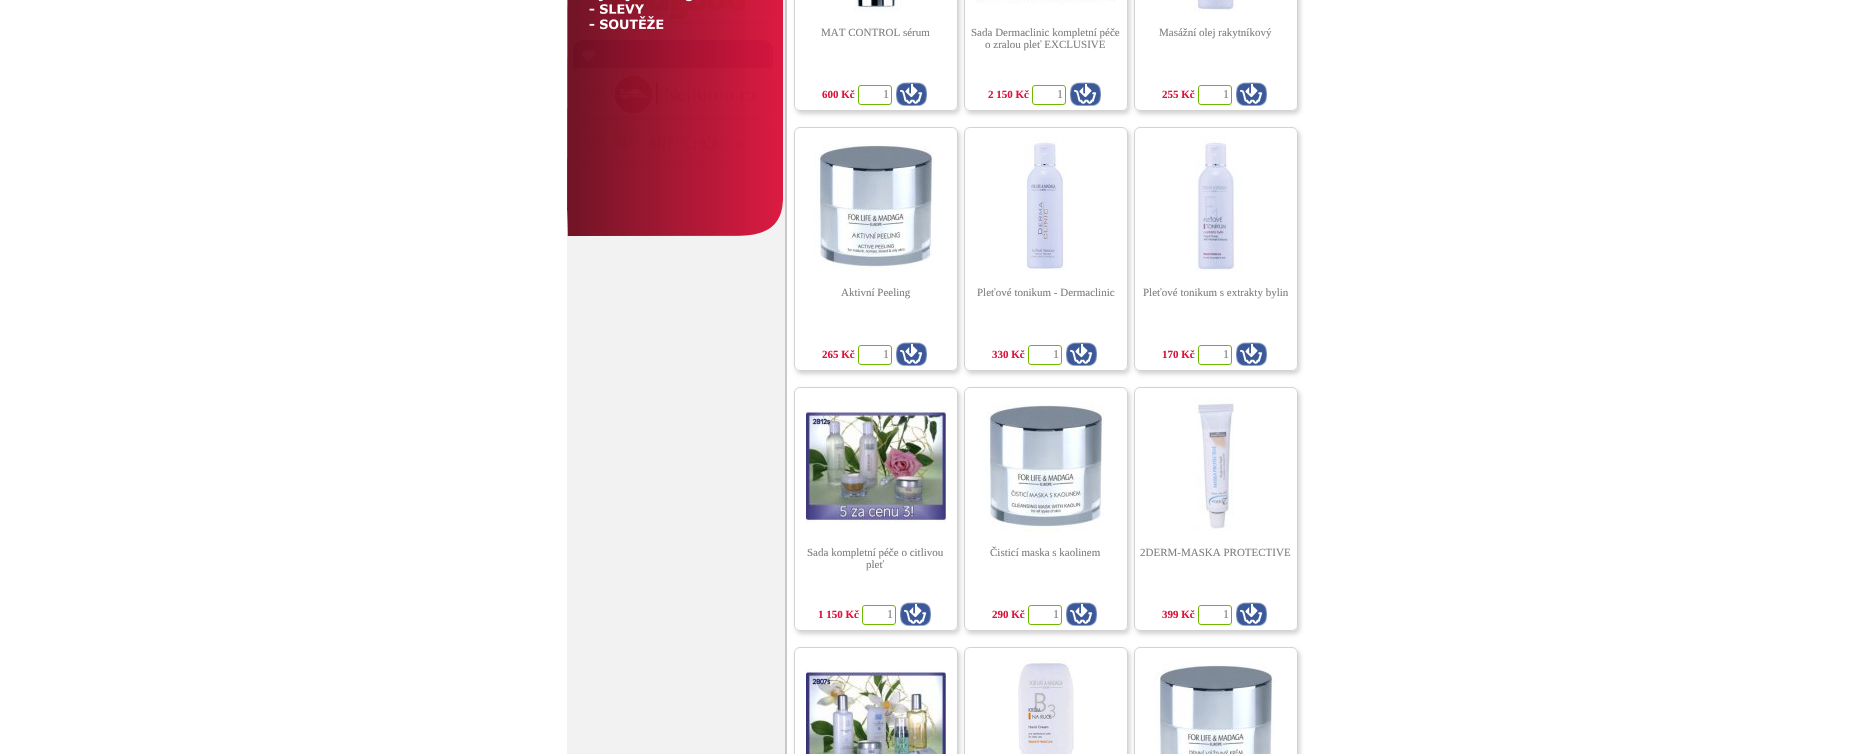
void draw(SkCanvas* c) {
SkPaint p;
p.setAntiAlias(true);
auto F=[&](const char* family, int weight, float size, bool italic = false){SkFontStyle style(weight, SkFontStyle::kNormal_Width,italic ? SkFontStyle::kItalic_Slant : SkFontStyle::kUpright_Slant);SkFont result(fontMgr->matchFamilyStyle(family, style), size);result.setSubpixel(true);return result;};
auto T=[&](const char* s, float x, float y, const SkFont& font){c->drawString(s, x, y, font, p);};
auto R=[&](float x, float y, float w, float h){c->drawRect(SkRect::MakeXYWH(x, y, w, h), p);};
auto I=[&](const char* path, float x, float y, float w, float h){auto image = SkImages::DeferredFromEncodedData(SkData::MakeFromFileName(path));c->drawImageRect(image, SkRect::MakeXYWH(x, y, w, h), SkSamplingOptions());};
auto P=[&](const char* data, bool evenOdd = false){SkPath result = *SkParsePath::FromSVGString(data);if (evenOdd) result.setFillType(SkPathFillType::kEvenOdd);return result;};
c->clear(0xffffffff);
p.setColor(0xfff2f2f2);
R(567,0,218,754);
p.setColor(0xffc9c9c9);
R(785,0,2,754);
c->save();
c->clipPath(P("M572 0h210v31h-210zm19-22h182v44h-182c-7.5 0-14-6.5-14-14v-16c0-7.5 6.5-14 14-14z",true),true);
p.setColor(0xffcbcbcb);
p.setMaskFilter(SkMaskFilter::MakeBlur(kNormal_SkBlurStyle, 2));
c->drawRoundRect(SkRect::MakeXYWH(579,-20,196,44),14,14,p);
p.setMaskFilter(nullptr);
c->restore();
p.setStroke(true);
p.setStrokeWidth(1);
c->drawPath(P("M591-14.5h181.5v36h-181.5c-7.5 0-13.5-6-13.5-13.5v-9c0-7.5 6-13.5 13.5-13.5z"),p);
I("1.png",586,0,19,9);
I("2.png",611,0,135,20);
I("3.png",573,40,200,29);
c->save();
c->clipPath(P("M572 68h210v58h-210zm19 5h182v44h-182c-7.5 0-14-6.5-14-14v-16c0-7.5 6.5-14 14-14z",true),true);
p.setStroke(false);
p.setMaskFilter(SkMaskFilter::MakeBlur(kNormal_SkBlurStyle, 2));
c->drawRoundRect(SkRect::MakeXYWH(579,75,196,44),14,14,p);
p.setMaskFilter(nullptr);
c->restore();
p.setStroke(true);
c->drawPath(P("M591 73.5h181.5v43h-181.5c-7.5 0-13.5-6-13.5-13.5v-16c0-7.5 6-13.5 13.5-13.5z"),p);
I("4.png",587,87,18,17);
I("5.png",614,76,143,38);
c->save();
c->clipPath(P("M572 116h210v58h-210zm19 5h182v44h-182c-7.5 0-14-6.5-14-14v-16c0-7.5 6.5-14 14-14z",true),true);
p.setStroke(false);
p.setMaskFilter(SkMaskFilter::MakeBlur(kNormal_SkBlurStyle, 2));
c->drawRoundRect(SkRect::MakeXYWH(579,123,196,44),14,14,p);
p.setMaskFilter(nullptr);
c->restore();
p.setStroke(true);
c->drawPath(P("M591 121.5h181.5v43h-181.5c-7.5 0-13.5-6-13.5-13.5v-16c0-7.5 6-13.5 13.5-13.5z"),p);
I("4.png",587,135,18,17);
I("6.png",611,123,134,28);
I("7.png",567,0,216,236);
c->save();
c->clipPath(P("M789 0h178v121h-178zm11-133h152c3.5 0 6 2.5 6 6v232c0 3.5-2.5 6-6 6h-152c-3.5 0-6-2.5-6-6v-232c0-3.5 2.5-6 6-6z",true),true);
p.setStroke(false);
p.setColor(0xffd3d3d3);
p.setMaskFilter(SkMaskFilter::MakeBlur(kNormal_SkBlurStyle, 2));
c->drawRoundRect(SkRect::MakeXYWH(796,-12,164,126),6,6,p);
p.setMaskFilter(nullptr);
c->restore();
p.setStroke(true);
c->drawRoundRect(SkRect::MakeXYWH(794.5,-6.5,163,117),5.5,5.5,p);
I("8.png",854,0,47,12);
auto f1 = F("Liberation Serif",400,11);
p.setStroke(false);
p.setColor(0xff808080);
T("MAT CONTROL sérum",821,36,f1);
auto f2 = F("Liberation Serif",700,11);
p.setColor(0xffdc143c);
T("600 Kč",822,98,f2);
p.setStroke(true);
p.setColor(0xff6eb800);
c->drawRoundRect(SkRect::MakeXYWH(858.5,85.5,33,19),2.5,2.5,p);
auto f3 = F("Liberation Serif",400,12);
p.setStroke(false);
p.setColor(0xff808080);
T("1",883,98,f3);
I("9.png",896,82,31,24);
c->save();
c->clipPath(P("M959 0h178v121h-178zm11-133h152c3.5 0 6 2.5 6 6v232c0 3.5-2.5 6-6 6h-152c-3.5 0-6-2.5-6-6v-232c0-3.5 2.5-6 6-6z",true),true);
p.setColor(0xffd3d3d3);
p.setMaskFilter(SkMaskFilter::MakeBlur(kNormal_SkBlurStyle, 2));
c->drawRoundRect(SkRect::MakeXYWH(966,-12,164,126),6,6,p);
p.setMaskFilter(nullptr);
c->restore();
p.setStroke(true);
c->drawRoundRect(SkRect::MakeXYWH(964.5,-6.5,163,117),5.5,5.5,p);
I("10.png",976,0,140,4);
p.setStroke(false);
p.setColor(0xff808080);
T("Sada Dermaclinic kompletní péče",971,36,f1);
T("o zralou pleť EXCLUSIVE",985,48,f1);
p.setColor(0xffdc143c);
T("2 150 Kč",988,98,f2);
p.setStroke(true);
p.setColor(0xff6eb800);
c->drawRoundRect(SkRect::MakeXYWH(1032.5,85.5,33,19),2.5,2.5,p);
p.setStroke(false);
p.setColor(0xff808080);
T("1",1057,98,f3);
I("9.png",1070,82,31,24);
c->save();
c->clipPath(P("M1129 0h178v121h-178zm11-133h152c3.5 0 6 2.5 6 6v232c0 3.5-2.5 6-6 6h-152c-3.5 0-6-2.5-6-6v-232c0-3.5 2.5-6 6-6z",true),true);
p.setColor(0xffd3d3d3);
p.setMaskFilter(SkMaskFilter::MakeBlur(kNormal_SkBlurStyle, 2));
c->drawRoundRect(SkRect::MakeXYWH(1136,-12,164,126),6,6,p);
p.setMaskFilter(nullptr);
c->restore();
p.setStroke(true);
c->drawRoundRect(SkRect::MakeXYWH(1134.5,-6.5,163,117),5.5,5.5,p);
I("11.png",1194,0,44,16);
p.setStroke(false);
p.setColor(0xff808080);
T("Masážní olej rakytníkový",1159,36,f1);
p.setColor(0xffdc143c);
T("255 Kč",1162,98,f2);
p.setStroke(true);
p.setColor(0xff6eb800);
c->drawRoundRect(SkRect::MakeXYWH(1198.5,85.5,33,19),2.5,2.5,p);
p.setStroke(false);
p.setColor(0xff808080);
T("1",1223,98,f3);
I("9.png",1236,82,31,24);
c->save();
c->clipPath(P("M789 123h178v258h-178zm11 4h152c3.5 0 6 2.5 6 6v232c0 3.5-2.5 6-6 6h-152c-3.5 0-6-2.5-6-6v-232c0-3.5 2.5-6 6-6z",true),true);
p.setColor(0xffd3d3d3);
p.setMaskFilter(SkMaskFilter::MakeBlur(kNormal_SkBlurStyle, 2));
c->drawRoundRect(SkRect::MakeXYWH(796,130,164,244),6,6,p);
p.setMaskFilter(nullptr);
c->restore();
p.setStroke(true);
c->drawRoundRect(SkRect::MakeXYWH(794.5,127.5,163,243),5.5,5.5,p);
I("12.png",814,144,120,128);
p.setStroke(false);
p.setColor(0xff808080);
T("Aktivní Peeling",841,296,f1);
p.setColor(0xffdc143c);
T("265 Kč",822,358,f2);
p.setStroke(true);
p.setColor(0xff6eb800);
c->drawRoundRect(SkRect::MakeXYWH(858.5,345.5,33,19),2.5,2.5,p);
p.setStroke(false);
p.setColor(0xff808080);
T("1",883,358,f3);
I("9.png",896,342,31,24);
c->save();
c->clipPath(P("M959 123h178v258h-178zm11 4h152c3.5 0 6 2.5 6 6v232c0 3.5-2.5 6-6 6h-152c-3.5 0-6-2.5-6-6v-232c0-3.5 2.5-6 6-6z",true),true);
p.setColor(0xffd3d3d3);
p.setMaskFilter(SkMaskFilter::MakeBlur(kNormal_SkBlurStyle, 2));
c->drawRoundRect(SkRect::MakeXYWH(966,130,164,244),6,6,p);
p.setMaskFilter(nullptr);
c->restore();
p.setStroke(true);
c->drawRoundRect(SkRect::MakeXYWH(964.5,127.5,163,243),5.5,5.5,p);
I("13.png",1024,136,44,137);
p.setStroke(false);
p.setColor(0xff808080);
T("Pleťové tonikum - Dermaclinic",977,296,f1);
p.setColor(0xffdc143c);
T("330 Kč",992,358,f2);
p.setStroke(true);
p.setColor(0xff6eb800);
c->drawRoundRect(SkRect::MakeXYWH(1028.5,345.5,33,19),2.5,2.5,p);
p.setStroke(false);
p.setColor(0xff808080);
T("1",1053,358,f3);
I("9.png",1066,342,31,24);
c->save();
c->clipPath(P("M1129 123h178v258h-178zm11 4h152c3.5 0 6 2.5 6 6v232c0 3.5-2.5 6-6 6h-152c-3.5 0-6-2.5-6-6v-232c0-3.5 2.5-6 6-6z",true),true);
p.setColor(0xffd3d3d3);
p.setMaskFilter(SkMaskFilter::MakeBlur(kNormal_SkBlurStyle, 2));
c->drawRoundRect(SkRect::MakeXYWH(1136,130,164,244),6,6,p);
p.setMaskFilter(nullptr);
c->restore();
p.setStroke(true);
c->drawRoundRect(SkRect::MakeXYWH(1134.5,127.5,163,243),5.5,5.5,p);
I("14.png",1194,136,48,140);
p.setStroke(false);
p.setColor(0xff808080);
T("Pleťové tonikum s extrakty bylin",1143,296,f1);
p.setColor(0xffdc143c);
T("170 Kč",1162,358,f2);
p.setStroke(true);
p.setColor(0xff6eb800);
c->drawRoundRect(SkRect::MakeXYWH(1198.5,345.5,33,19),2.5,2.5,p);
p.setStroke(false);
p.setColor(0xff808080);
T("1",1223,358,f3);
I("9.png",1236,342,31,24);
c->save();
c->clipPath(P("M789 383h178v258h-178zm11 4h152c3.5 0 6 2.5 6 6v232c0 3.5-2.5 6-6 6h-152c-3.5 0-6-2.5-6-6v-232c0-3.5 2.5-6 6-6z",true),true);
p.setColor(0xffd3d3d3);
p.setMaskFilter(SkMaskFilter::MakeBlur(kNormal_SkBlurStyle, 2));
c->drawRoundRect(SkRect::MakeXYWH(796,390,164,244),6,6,p);
p.setMaskFilter(nullptr);
c->restore();
p.setStroke(true);
c->drawRoundRect(SkRect::MakeXYWH(794.5,387.5,163,243),5.5,5.5,p);
I("15.png",806,411,140,113);
p.setStroke(false);
p.setColor(0xff808080);
T("Sada kompletní péče o citlivou",807,556,f1);
T("pleť",866,568,f1);
p.setColor(0xffdc143c);
T("1 150 Kč",818,618,f2);
p.setStroke(true);
p.setColor(0xff6eb800);
c->drawRoundRect(SkRect::MakeXYWH(862.5,605.5,33,19),2.5,2.5,p);
p.setStroke(false);
p.setColor(0xff808080);
T("1",887,618,f3);
I("9.png",900,602,31,24);
c->save();
c->clipPath(P("M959 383h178v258h-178zm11 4h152c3.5 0 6 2.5 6 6v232c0 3.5-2.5 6-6 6h-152c-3.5 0-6-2.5-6-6v-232c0-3.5 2.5-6 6-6z",true),true);
p.setColor(0xffd3d3d3);
p.setMaskFilter(SkMaskFilter::MakeBlur(kNormal_SkBlurStyle, 2));
c->drawRoundRect(SkRect::MakeXYWH(966,390,164,244),6,6,p);
p.setMaskFilter(nullptr);
c->restore();
p.setStroke(true);
c->drawRoundRect(SkRect::MakeXYWH(964.5,387.5,163,243),5.5,5.5,p);
I("16.png",985,401,119,132);
p.setStroke(false);
p.setColor(0xff808080);
T("Čisticí maska s kaolinem",990,556,f1);
p.setColor(0xffdc143c);
T("290 Kč",992,618,f2);
p.setStroke(true);
p.setColor(0xff6eb800);
c->drawRoundRect(SkRect::MakeXYWH(1028.5,605.5,33,19),2.5,2.5,p);
p.setStroke(false);
p.setColor(0xff808080);
T("1",1053,618,f3);
I("9.png",1066,602,31,24);
c->save();
c->clipPath(P("M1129 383h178v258h-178zm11 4h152c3.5 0 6 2.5 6 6v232c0 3.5-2.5 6-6 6h-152c-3.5 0-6-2.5-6-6v-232c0-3.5 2.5-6 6-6z",true),true);
p.setColor(0xffd3d3d3);
p.setMaskFilter(SkMaskFilter::MakeBlur(kNormal_SkBlurStyle, 2));
c->drawRoundRect(SkRect::MakeXYWH(1136,390,164,244),6,6,p);
p.setMaskFilter(nullptr);
c->restore();
p.setStroke(true);
c->drawRoundRect(SkRect::MakeXYWH(1134.5,387.5,163,243),5.5,5.5,p);
I("17.png",1194,397,40,134);
p.setStroke(false);
p.setColor(0xff808080);
T("2DERM-MASKA PROTECTIVE",1140,556,f1);
p.setColor(0xffdc143c);
T("399 Kč",1162,618,f2);
p.setStroke(true);
p.setColor(0xff6eb800);
c->drawRoundRect(SkRect::MakeXYWH(1198.5,605.5,33,19),2.5,2.5,p);
p.setStroke(false);
p.setColor(0xff808080);
T("1",1223,618,f3);
I("9.png",1236,602,31,24);
c->save();
c->clipPath(P("M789 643h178v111h-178zm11 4h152c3.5 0 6 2.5 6 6v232c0 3.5-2.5 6-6 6h-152c-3.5 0-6-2.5-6-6v-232c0-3.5 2.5-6 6-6z",true),true);
p.setColor(0xffd3d3d3);
p.setMaskFilter(SkMaskFilter::MakeBlur(kNormal_SkBlurStyle, 2));
c->drawRoundRect(SkRect::MakeXYWH(796,650,164,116),6,6,p);
p.setMaskFilter(nullptr);
c->restore();
p.setStroke(true);
c->drawRoundRect(SkRect::MakeXYWH(794.5,647.5,163,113),5.5,5.5,p);
I("18.png",806,670,140,84);
c->save();
c->clipPath(P("M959 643h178v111h-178zm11 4h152c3.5 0 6 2.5 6 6v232c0 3.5-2.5 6-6 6h-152c-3.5 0-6-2.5-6-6v-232c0-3.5 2.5-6 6-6z",true),true);
p.setStroke(false);
p.setMaskFilter(SkMaskFilter::MakeBlur(kNormal_SkBlurStyle, 2));
c->drawRoundRect(SkRect::MakeXYWH(966,650,164,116),6,6,p);
p.setMaskFilter(nullptr);
c->restore();
p.setStroke(true);
c->drawRoundRect(SkRect::MakeXYWH(964.5,647.5,163,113),5.5,5.5,p);
I("19.png",1018,656,56,98);
c->save();
c->clipPath(P("M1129 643h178v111h-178zm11 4h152c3.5 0 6 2.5 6 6v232c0 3.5-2.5 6-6 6h-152c-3.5 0-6-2.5-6-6v-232c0-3.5 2.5-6 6-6z",true),true);
p.setStroke(false);
p.setMaskFilter(SkMaskFilter::MakeBlur(kNormal_SkBlurStyle, 2));
c->drawRoundRect(SkRect::MakeXYWH(1136,650,164,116),6,6,p);
p.setMaskFilter(nullptr);
c->restore();
p.setStroke(true);
c->drawRoundRect(SkRect::MakeXYWH(1134.5,647.5,163,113),5.5,5.5,p);
I("20.png",1154,661,120,93);
}
